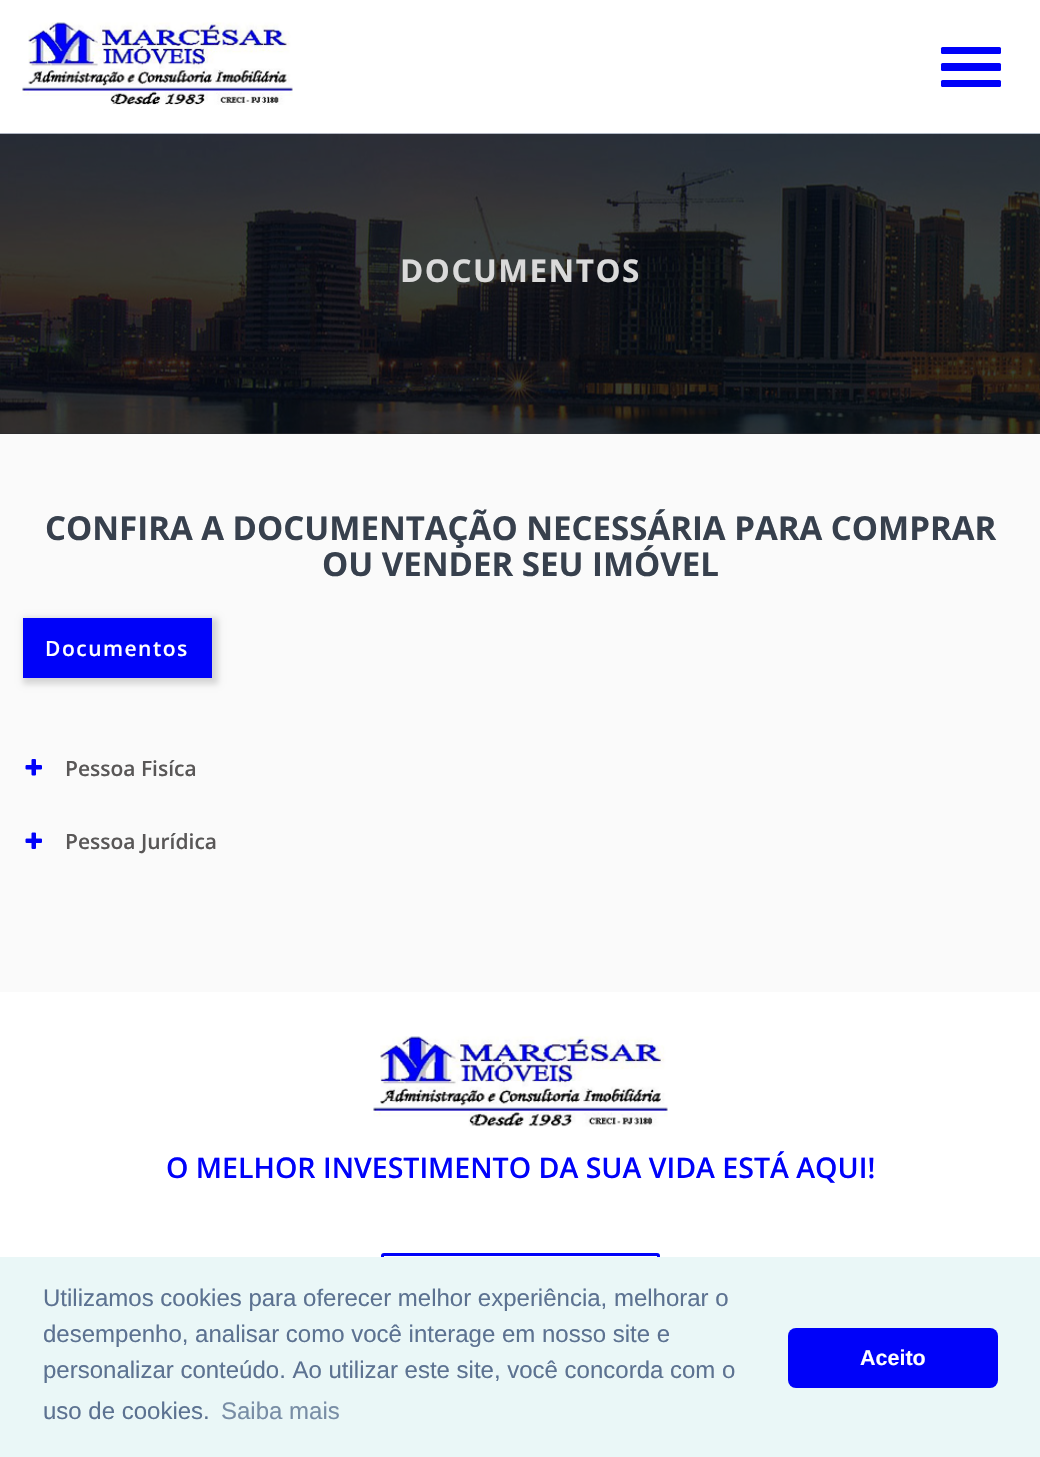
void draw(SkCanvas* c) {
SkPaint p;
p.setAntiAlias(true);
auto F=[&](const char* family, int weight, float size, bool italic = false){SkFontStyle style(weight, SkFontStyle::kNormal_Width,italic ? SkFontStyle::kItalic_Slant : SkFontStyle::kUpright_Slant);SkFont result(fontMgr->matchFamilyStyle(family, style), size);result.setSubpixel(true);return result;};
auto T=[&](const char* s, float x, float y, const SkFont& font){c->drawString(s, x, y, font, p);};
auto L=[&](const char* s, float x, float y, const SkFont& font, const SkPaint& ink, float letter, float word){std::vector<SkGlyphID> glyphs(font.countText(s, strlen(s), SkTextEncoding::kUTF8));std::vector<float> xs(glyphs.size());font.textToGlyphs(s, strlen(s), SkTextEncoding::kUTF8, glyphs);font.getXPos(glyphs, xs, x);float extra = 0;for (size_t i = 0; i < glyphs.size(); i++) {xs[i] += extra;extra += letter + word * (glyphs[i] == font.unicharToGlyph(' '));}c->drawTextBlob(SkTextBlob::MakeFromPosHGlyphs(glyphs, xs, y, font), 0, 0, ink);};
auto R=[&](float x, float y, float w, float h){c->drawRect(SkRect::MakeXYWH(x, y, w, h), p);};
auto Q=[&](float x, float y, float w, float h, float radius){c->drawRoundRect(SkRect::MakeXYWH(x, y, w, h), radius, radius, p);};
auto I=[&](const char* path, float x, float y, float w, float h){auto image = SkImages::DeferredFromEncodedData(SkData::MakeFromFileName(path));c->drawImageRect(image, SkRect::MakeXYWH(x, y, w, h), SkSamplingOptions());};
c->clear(0xfffafafa);
p.setColor(0xffffffff);
R(0,0,1040,134);
I("1.png",22,22,271,83);
p.setColor(0xff0002f9);
Q(941,47,60,7,1.5);
Q(941,63,60,8,1.5);
Q(941,80,60,7,1.5);
p.setColor(0xb3242a35);
R(0,433,1040,1);
I("2.png",0,133,1040,301);
p.setColor(0x99000000);
R(0,134,1040,300);
auto f1 = F("Open Sans",700,31.5);
p.setColor(0xffdadada);
L("DOCUMENTOS",400,282,f1,p,1.5,0);
auto f2 = F("Open Sans",700,33);
p.setColor(0xff37404d);
T("CONFIRA A DOCUMENTAÇÃO NECESSÁRIA PARA COMPRAR",45,540,f2);
T("OU VENDER SEU IMÓVEL",322,576,f2);
p.setColor(0x26000000);
p.setMaskFilter(SkMaskFilter::MakeBlur(kNormal_SkBlurStyle, 3));
c->drawRect(SkRect::MakeXYWH(23,618,195,66),p);
p.setMaskFilter(nullptr);
p.setColor(0xff0002f9);
R(23,618,189,60);
auto f3 = F("Open Sans",600,21);
p.setColor(0xffffffff);
L("Documentos",45,656,f3,p,1.5,0);
I("3.png",25,759,17,17);
p.setColor(0xff595757);
T("Pessoa Fisíca",65,776,f3);
I("4.png",25,832,17,17);
T("Pessoa Jurídica",65,849,f3);
p.setColor(0xffffffff);
R(0,992,1040,265);
I("5.png",373,1036,295,91);
auto f4 = F("Open Sans",600,28.5);
p.setColor(0xff0002f9);
T("O MELHOR INVESTIMENTO DA SUA VIDA ESTÁ AQUI!",166,1178,f4);
p.setStroke(true);
p.setStrokeWidth(3);
c->drawRoundRect(SkRect::MakeXYWH(382.5,1254.5,276,52),1.5,1.5,p);
p.setStroke(false);
p.setColor(0xffeaf7f7);
R(0,1257,1040,200);
auto f5 = F("Liberation Sans",400,24);
p.setColor(0xff5c7291);
T("Utilizamos cookies para oferecer melhor experiência, melhorar o",43,1306,f5);
T("desempenho, analisar como você interage em nosso site e",43,1342,f5);
T("personalizar conteúdo. Ao utilizar este site, você concorda com o",43,1378,f5);
T("uso de cookies.",43,1419,f5);
p.setColor(0xff788da5);
T("Saiba mais",221,1419,f5);
p.setColor(0xff0002f9);
Q(788,1328,210,60,8);
auto f6 = F("Liberation Sans",700,21.5);
p.setColor(0xffffffff);
T("Aceito",860,1365,f6);
}
